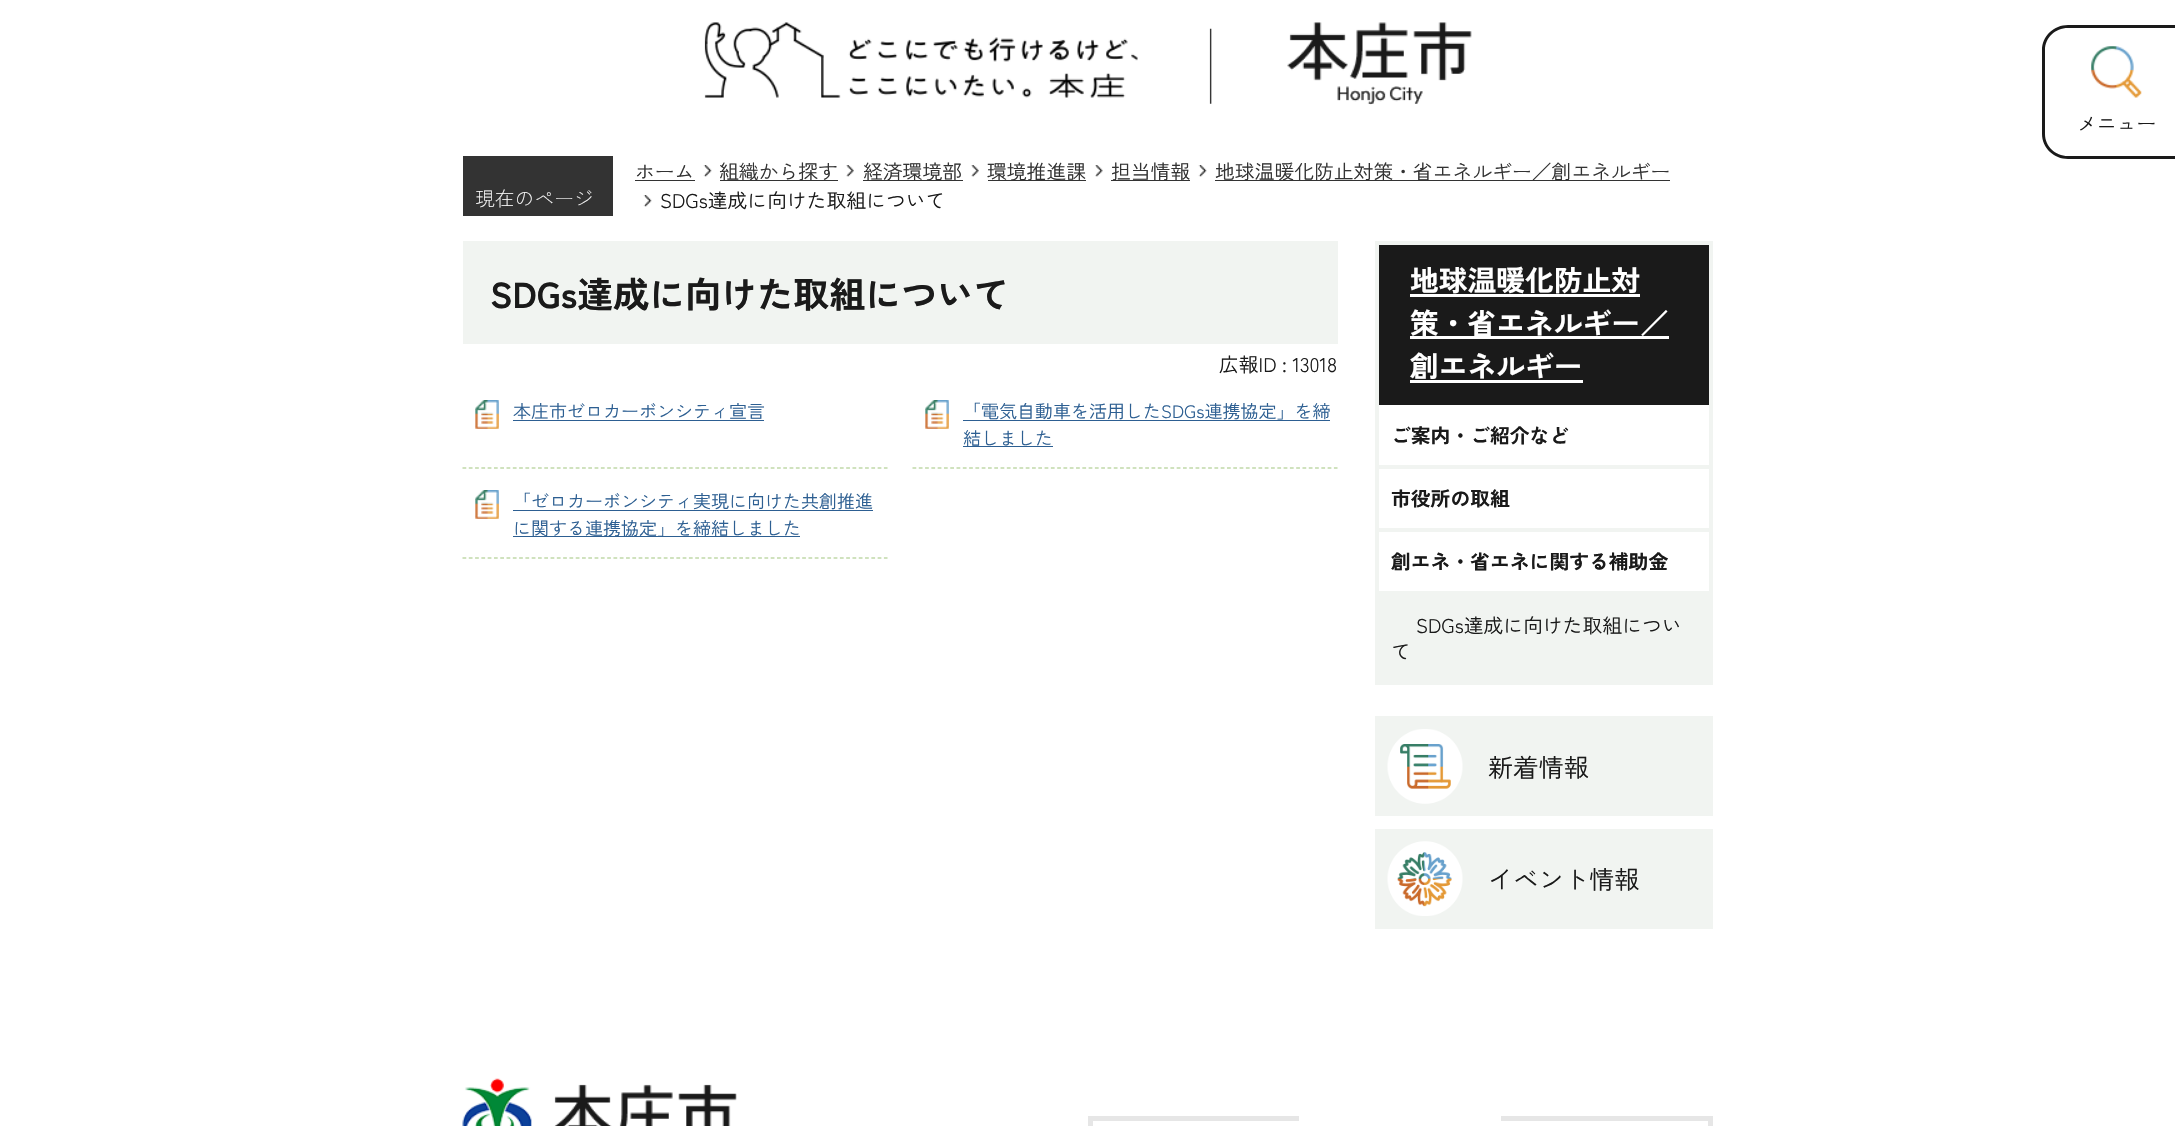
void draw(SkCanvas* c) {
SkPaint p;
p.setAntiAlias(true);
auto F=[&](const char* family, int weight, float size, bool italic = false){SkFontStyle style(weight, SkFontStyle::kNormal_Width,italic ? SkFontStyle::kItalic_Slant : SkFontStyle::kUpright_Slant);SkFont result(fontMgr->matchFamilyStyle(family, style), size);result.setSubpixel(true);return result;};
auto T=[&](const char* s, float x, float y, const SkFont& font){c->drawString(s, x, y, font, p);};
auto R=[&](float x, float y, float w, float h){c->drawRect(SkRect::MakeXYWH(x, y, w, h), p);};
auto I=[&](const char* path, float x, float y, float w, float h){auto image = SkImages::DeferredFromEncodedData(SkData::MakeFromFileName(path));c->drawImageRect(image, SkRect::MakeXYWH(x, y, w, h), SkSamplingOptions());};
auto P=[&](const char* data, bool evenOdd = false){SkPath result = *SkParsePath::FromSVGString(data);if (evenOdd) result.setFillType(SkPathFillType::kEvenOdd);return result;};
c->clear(0xffffffff);
I("1.png",704,22,768,83);
p.setColor(0xff1a1a1a);
c->drawPath(P("M2068 25h107v134h-107c-14 0-26-11-26-25v-84c0-14 12-25 26-25zm0 3h107v128h-107c-13 0-23-10-23-22v-84c0-12 10-22 23-22z",true),p);
I("2.png",2091,46,51,52);
auto f1 = F("Zen Kaku Gothic New",400,19.8);
T("メニュー",2077,131,f1);
p.setColor(0xff333333);
R(463,156,150,60);
auto f2 = F("Zen Kaku Gothic New",300,19.8);
p.setColor(0xffffffff);
T("現在のページ",475,206,f2);
p.setColor(0xff333333);
T("ホーム",635,179,f1);
R(635,180,60,1);
I("3.png",703,165,9,12);
R(720,180,118,1);
T("組織から探す",719,179,f1);
I("4.png",846,165,8,12);
R(863,180,100,1);
T("経済環境部",863,179,f1);
I("4.png",971,165,8,12);
R(988,180,98,1);
T("環境推進課",987,179,f1);
I("5.png",1095,165,8,12);
R(1111,180,79,1);
T("担当情報",1111,179,f1);
I("6.png",1198,165,9,12);
R(1215,180,455,1);
T("地球温暖化防止対策・省エネルギー／創エネルギー",1215,179,f1);
I("6.png",643,195,9,12);
p.setColor(0xff1a1a1a);
T("SDGs達成に向けた取組について",660,208,f1);
p.setColor(0xfff1f4f1);
R(463,241,875,103);
auto f3 = F("Zen Kaku Gothic New",700,36);
p.setColor(0xff1a1a1a);
T("SDGs達成に向けた取組について",490,308,f3);
T("広報ID : 13018",1219,372,f1);
I("7.png",475,400,24,29);
p.setStroke(true);
p.setStrokeWidth(1.2);
p.setColor(0xffa1c67e);
p.setPathEffect(SkDashPathEffect::Make({{3.75f,2.54f}}, 0));
c->drawPath(P("M462.5 468h425"),p);
p.setPathEffect(nullptr);
auto f4 = F("Zen Kaku Gothic New",400,18);
p.setStroke(false);
p.setColor(0xff2d5f92);
T("本庄市ゼロカーボンシティ宣言",513,418,f4);
R(513,420,251,1);
I("7.png",925,400,24,29);
p.setStroke(true);
p.setColor(0xffa1c67e);
p.setPathEffect(SkDashPathEffect::Make({{3.75f,2.54f}}, 0));
c->drawPath(P("M912.5 468h425"),p);
p.setPathEffect(nullptr);
p.setStroke(false);
p.setColor(0xff2d5f92);
T("「電気自動車を活用したSDGs連携協定」を締",963,418,f4);
R(963,420,367,1);
R(963,446,90,1);
T("結しました",963,445,f4);
I("7.png",475,490,24,29);
p.setStroke(true);
p.setColor(0xffa1c67e);
p.setPathEffect(SkDashPathEffect::Make({{3.75f,2.54f}}, 0));
c->drawPath(P("M462.5 558h425"),p);
p.setPathEffect(nullptr);
p.setStroke(false);
p.setColor(0xff2d5f92);
T("「ゼロカーボンシティ実現に向けた共創推進",513,508,f4);
R(513,510,360,1);
R(513,536,287,1);
T("に関する連携協定」を締結しました",513,535,f4);
p.setStroke(true);
p.setStrokeWidth(4);
p.setColor(0xfff1f4f1);
c->drawRect(SkRect::MakeXYWH(1377,243,334,440),p);
p.setStroke(false);
p.setColor(0xff1a1a1a);
R(1379,245,330,160);
auto f5 = F("Zen Kaku Gothic New",700,28.75);
p.setColor(0xffffffff);
T("地球温暖化防止対",1410,291,f5);
R(1410,294,230,3);
R(1410,336,259,3);
T("策・省エネルギー／",1410,334,f5);
T("創エネルギー",1410,377,f5);
R(1410,380,173,3);
p.setColor(0xfff1f4f1);
R(1379,465,330,4);
auto f6 = F("Zen Kaku Gothic New",700,19.8);
p.setColor(0xff1a1a1a);
T("ご案内・ご紹介など",1391,443,f6);
p.setColor(0xfff1f4f1);
R(1379,528,330,4);
p.setColor(0xff1a1a1a);
T("市役所の取組",1391,506,f6);
p.setColor(0xfff1f4f1);
R(1379,591,330,90);
p.setColor(0xff1a1a1a);
T("創エネ・省エネに関する補助金",1391,569,f6);
T("SDGs達成に向けた取組につい",1416,633,f1);
T("て",1391,659,f1);
p.setColor(0xfff1f4f1);
R(1375,716,338,100);
I("8.png",1387,729,76,75);
auto f7 = F("Zen Kaku Gothic New",400,25.25);
p.setColor(0xff1a1a1a);
T("新着情報",1488,777,f7);
p.setColor(0xfff1f4f1);
R(1375,829,338,100);
I("9.png",1387,841,76,75);
p.setColor(0xff1a1a1a);
T("イベント情報",1488,889,f7);
I("10.png",462,1078,275,48);
p.setStroke(true);
p.setStrokeWidth(5);
p.setColor(0xffe6e6e6);
c->drawRect(SkRect::MakeXYWH(1090.5,1118.5,620,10),p);
p.setStroke(false);
p.setColor(0xffffffff);
R(1299,1116,202,5);
}
